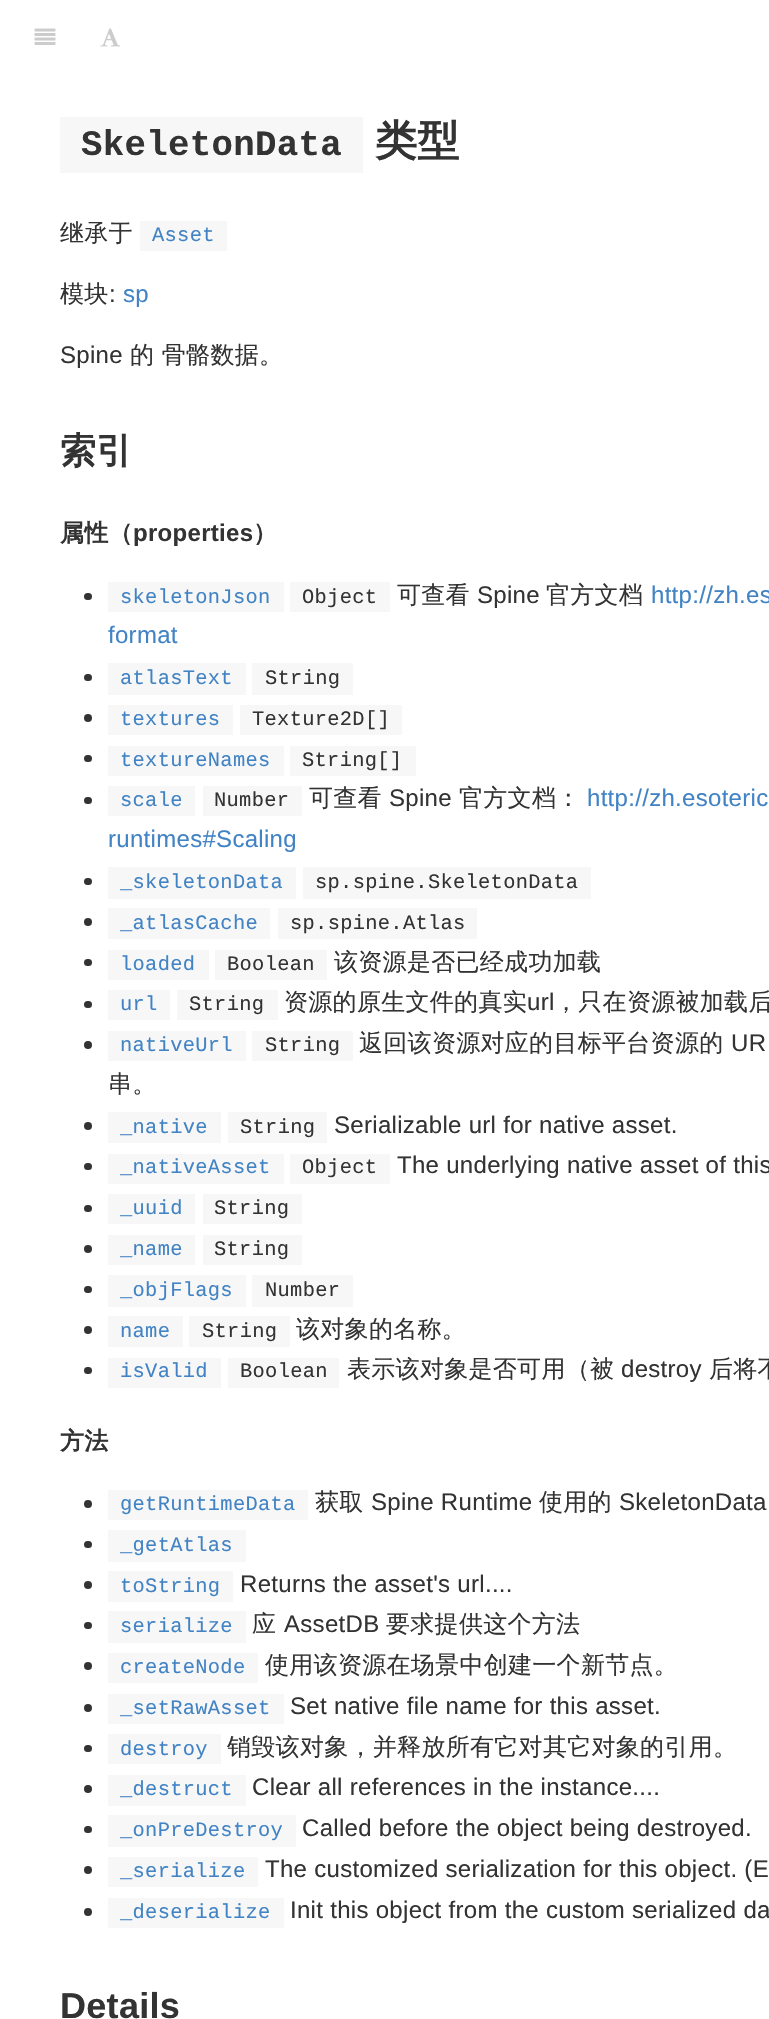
void draw(SkCanvas* c) {
SkPaint p;
p.setAntiAlias(true);
auto F=[&](const char* family, int weight, float size, bool italic = false){SkFontStyle style(weight, SkFontStyle::kNormal_Width,italic ? SkFontStyle::kItalic_Slant : SkFontStyle::kUpright_Slant);SkFont result(fontMgr->matchFamilyStyle(family, style), size);result.setSubpixel(true);return result;};
auto L=[&](const char* s, float x, float y, const SkFont& font, const SkPaint& ink, float letter, float word){std::vector<SkGlyphID> glyphs(font.countText(s, strlen(s), SkTextEncoding::kUTF8));std::vector<float> xs(glyphs.size());font.textToGlyphs(s, strlen(s), SkTextEncoding::kUTF8, glyphs);font.getXPos(glyphs, xs, x);float extra = 0;for (size_t i = 0; i < glyphs.size(); i++) {xs[i] += extra;extra += letter + word * (glyphs[i] == font.unicharToGlyph(' '));}c->drawTextBlob(SkTextBlob::MakeFromPosHGlyphs(glyphs, xs, y, font), 0, 0, ink);};
auto R=[&](float x, float y, float w, float h){c->drawRect(SkRect::MakeXYWH(x, y, w, h), p);};
auto Q=[&](float x, float y, float w, float h, float radius){c->drawRoundRect(SkRect::MakeXYWH(x, y, w, h), radius, radius, p);};
auto I=[&](const char* path, float x, float y, float w, float h){auto image = SkImages::DeferredFromEncodedData(SkData::MakeFromFileName(path));c->drawImageRect(image, SkRect::MakeXYWH(x, y, w, h), SkSamplingOptions());};
c->clear(0xffffffff);
I("1.png",34,28,22,17);
I("2.png",100,28,20,19);
p.setColor(0xfff7f7f7);
R(60,117,303,56);
auto f1 = F("Liberation Mono",700,35.75);
p.setColor(0xff333333);
L("SkeletonData",81,155,f1,p,.3,0);
auto f2 = F("WenQuanYi Zen Hei",700,42);
L("类型",375,155,f2,p,.3,0);
auto f3 = F("WenQuanYi Zen Hei",500,24);
L("继承于",60,241,f3,p,.3,0);
p.setColor(0xfff7f7f7);
R(140,221,87,30);
auto f4 = F("Liberation Mono",400,20.4);
p.setColor(0xff4183c4);
L("Asset",152,241,f4,p,.3,0);
p.setColor(0xff333333);
L("模块",60,302,f3,p,.3,0);
auto f5 = F("Liberation Sans",400,24);
L(":",109,302,f5,p,.3,0);
p.setColor(0xff4183c4);
L("sp",123,302,f5,p,.3,0);
p.setColor(0xff333333);
L("Spine",60,363,f5,p,.3,0);
L("的 骨骼数据。",130,363,f3,p,.3,0);
auto f6 = F("WenQuanYi Zen Hei",700,36);
L("索引",60,463,f6,p,.3,0);
auto f7 = F("WenQuanYi Zen Hei",700,24);
L("属性（",60,541,f7,p,.3,0);
auto f8 = F("Liberation Sans",700,24);
L("properties",133,541,f8,p,.3,0);
L("）",253,541,f7,p,.3,0);
Q(84,593,8,7,3.5);
p.setColor(0xfff7f7f7);
R(108,582,176,30);
p.setColor(0xff4183c4);
L("skeletonJson",120,603,f4,p,.3,0);
p.setColor(0xfff7f7f7);
R(290,582,100,30);
p.setColor(0xff333333);
L("Object",302,603,f4,p,.3,0);
L("可查看",397,603,f3,p,.3,0);
L("Spine",477,603,f5,p,.3,0);
L("官方文档",546,603,f3,p,.3,0);
p.setColor(0xff4183c4);
L("http://zh.es",651,603,f5,p,.3,0);
L("format",108,643,f5,p,.3,0);
p.setColor(0xff333333);
Q(84,674,8,7,3.5);
p.setColor(0xfff7f7f7);
R(108,663,138,32);
p.setColor(0xff4183c4);
L("atlasText",120,684,f4,p,.3,0);
p.setColor(0xfff7f7f7);
R(252,663,101,32);
p.setColor(0xff333333);
L("String",265,684,f4,p,.3,0);
c->drawCircle(88,718,4,p);
p.setColor(0xfff7f7f7);
R(108,705,125,30);
p.setColor(0xff4183c4);
L("textures",120,725,f4,p,.3,0);
p.setColor(0xfff7f7f7);
R(240,705,162,30);
p.setColor(0xff333333);
L("Texture2D[]",252,725,f4,p,.3,0);
Q(84,755,8,7,3.5);
p.setColor(0xfff7f7f7);
R(108,746,176,30);
p.setColor(0xff4183c4);
L("textureNames",120,766,f4,p,.3,0);
p.setColor(0xfff7f7f7);
R(290,746,126,30);
p.setColor(0xff333333);
L("String[]",302,766,f4,p,.3,0);
Q(84,797,8,7,3.5);
p.setColor(0xfff7f7f7);
R(108,786,87,30);
p.setColor(0xff4183c4);
L("scale",120,806,f4,p,.3,0);
p.setColor(0xfff7f7f7);
R(203,786,99,30);
p.setColor(0xff333333);
L("Number",214,806,f4,p,.3,0);
L("可查看",309,806,f3,p,.3,0);
L("Spine",389,806,f5,p,.3,0);
L("官方文档：",459,806,f3,p,.3,0);
p.setColor(0xff4183c4);
L("http://zh.esoteric",587,806,f5,p,.3,0);
L("runtimes#Scaling",108,847,f5,p,.3,0);
p.setColor(0xff333333);
Q(84,878,8,7,3.5);
p.setColor(0xfff7f7f7);
R(108,867,188,32);
p.setColor(0xff4183c4);
L("_skeletonData",120,888,f4,p,.3,0);
p.setColor(0xfff7f7f7);
R(303,867,288,32);
p.setColor(0xff333333);
L("sp.spine.SkeletonData",315,888,f4,p,.3,0);
c->drawCircle(88,922,4,p);
p.setColor(0xfff7f7f7);
R(108,908,162,31);
p.setColor(0xff4183c4);
L("_atlasCache",120,929,f4,p,.3,0);
p.setColor(0xfff7f7f7);
R(278,908,199,31);
p.setColor(0xff333333);
L("sp.spine.Atlas",290,929,f4,p,.3,0);
Q(84,959,8,7,3.5);
p.setColor(0xfff7f7f7);
R(108,950,101,30);
p.setColor(0xff4183c4);
L("loaded",120,970,f4,p,.3,0);
p.setColor(0xfff7f7f7);
R(215,950,112,30);
p.setColor(0xff333333);
L("Boolean",227,970,f4,p,.3,0);
L("该资源是否已经成功加载",334,970,f3,p,.3,0);
Q(84,1001,8,7,3.5);
p.setColor(0xfff7f7f7);
R(108,990,62,30);
p.setColor(0xff4183c4);
L("url",120,1010,f4,p,.3,0);
p.setColor(0xfff7f7f7);
R(177,990,101,30);
p.setColor(0xff333333);
L("String",189,1010,f4,p,.3,0);
L("资源的原生文件的真实",284,1010,f3,p,.3,0);
L("url",527,1010,f5,p,.3,0);
L("，只在资源被加载后",554,1010,f3,p,.3,0);
c->drawCircle(88,1045,4,p);
p.setColor(0xfff7f7f7);
R(108,1031,138,30);
p.setColor(0xff4183c4);
L("nativeUrl",120,1051,f4,p,.3,0);
p.setColor(0xfff7f7f7);
R(252,1031,101,30);
p.setColor(0xff333333);
L("String",265,1051,f4,p,.3,0);
L("返回该资源对应的目标平台资源的",359,1051,f3,p,.3,0);
L("UR",731,1051,f5,p,.3,0);
L("串。",108,1092,f3,p,.3,0);
c->drawCircle(88,1126,4,p);
p.setColor(0xfff7f7f7);
R(108,1112,113,31);
p.setColor(0xff4183c4);
L("_native",120,1133,f4,p,.3,0);
p.setColor(0xfff7f7f7);
R(228,1112,99,31);
p.setColor(0xff333333);
L("String",240,1133,f4,p,.3,0);
L("Serializable url for native asset.",334,1133,f5,p,.3,0);
Q(84,1163,8,7,3.5);
p.setColor(0xfff7f7f7);
R(108,1154,176,30);
p.setColor(0xff4183c4);
L("_nativeAsset",120,1173,f4,p,.3,0);
p.setColor(0xfff7f7f7);
R(290,1154,100,30);
p.setColor(0xff333333);
L("Object",302,1173,f4,p,.3,0);
L("The underlying native asset of this",397,1173,f5,p,.3,0);
Q(84,1205,8,7,3.5);
p.setColor(0xfff7f7f7);
R(108,1194,87,30);
p.setColor(0xff4183c4);
L("_uuid",120,1214,f4,p,.3,0);
p.setColor(0xfff7f7f7);
R(203,1194,99,30);
p.setColor(0xff333333);
L("String",214,1214,f4,p,.3,0);
c->drawCircle(88,1249,4,p);
p.setColor(0xfff7f7f7);
R(108,1235,87,30);
p.setColor(0xff4183c4);
L("_name",120,1255,f4,p,.3,0);
p.setColor(0xfff7f7f7);
R(203,1235,99,30);
p.setColor(0xff333333);
L("String",214,1255,f4,p,.3,0);
Q(84,1286,8,7,3.5);
p.setColor(0xfff7f7f7);
R(108,1275,138,32);
p.setColor(0xff4183c4);
L("_objFlags",120,1296,f4,p,.3,0);
p.setColor(0xfff7f7f7);
R(252,1275,101,32);
p.setColor(0xff333333);
L("Number",265,1296,f4,p,.3,0);
c->drawCircle(88,1330,4,p);
p.setColor(0xfff7f7f7);
R(108,1316,75,31);
p.setColor(0xff4183c4);
L("name",120,1337,f4,p,.3,0);
p.setColor(0xfff7f7f7);
R(189,1316,101,31);
p.setColor(0xff333333);
L("String",202,1337,f4,p,.3,0);
L("该对象的名称。",296,1337,f3,p,.3,0);
Q(84,1367,8,7,3.5);
p.setColor(0xfff7f7f7);
R(108,1358,113,30);
p.setColor(0xff4183c4);
L("isValid",120,1377,f4,p,.3,0);
p.setColor(0xfff7f7f7);
R(228,1358,111,30);
p.setColor(0xff333333);
L("Boolean",240,1377,f4,p,.3,0);
L("表示该对象是否可用（被",347,1377,f3,p,.3,0);
L("destroy",621,1377,f5,p,.3,0);
L("后将不",709,1377,f3,p,.3,0);
L("方法",60,1449,f7,p,.3,0);
c->drawCircle(88,1504,4,p);
p.setColor(0xfff7f7f7);
R(108,1490,200,30);
p.setColor(0xff4183c4);
L("getRuntimeData",120,1510,f4,p,.3,0);
p.setColor(0xff333333);
L("获取",315,1510,f3,p,.3,0);
L("Spine Runtime",371,1510,f5,p,.3,0);
L("使用的",539,1510,f3,p,.3,0);
L("SkeletonData",619,1510,f5,p,.3,0);
Q(84,1541,8,7,3.5);
p.setColor(0xfff7f7f7);
R(108,1530,138,32);
p.setColor(0xff4183c4);
L("_getAtlas",120,1551,f4,p,.3,0);
p.setColor(0xff333333);
c->drawCircle(88,1585,4,p);
p.setColor(0xfff7f7f7);
R(108,1571,125,31);
p.setColor(0xff4183c4);
L("toString",120,1592,f4,p,.3,0);
p.setColor(0xff333333);
L("Returns the asset's url....",240,1592,f5,p,.3,0);
Q(84,1622,8,7,3.5);
p.setColor(0xfff7f7f7);
R(108,1611,138,32);
p.setColor(0xff4183c4);
L("serialize",120,1632,f4,p,.3,0);
p.setColor(0xff333333);
L("应",252,1632,f3,p,.3,0);
L("AssetDB",284,1632,f5,p,.3,0);
L("要求提供这个方法",386,1632,f3,p,.3,0);
c->drawCircle(88,1666,4,p);
p.setColor(0xfff7f7f7);
R(108,1653,150,30);
p.setColor(0xff4183c4);
L("createNode",120,1673,f4,p,.3,0);
p.setColor(0xff333333);
L("使用该资源在场景中创建一个新节点。",265,1673,f3,p,.3,0);
c->drawCircle(88,1708,4,p);
p.setColor(0xfff7f7f7);
R(108,1694,176,30);
p.setColor(0xff4183c4);
L("_setRawAsset",120,1714,f4,p,.3,0);
p.setColor(0xff333333);
L("Set native file name for this asset.",290,1714,f5,p,.3,0);
Q(84,1745,8,7,3.5);
p.setColor(0xfff7f7f7);
R(108,1734,113,30);
p.setColor(0xff4183c4);
L("destroy",120,1755,f4,p,.3,0);
p.setColor(0xff333333);
L("销毁该对象，并释放所有它对其它对象的引用。",227,1755,f3,p,.3,0);
c->drawCircle(88,1789,4,p);
p.setColor(0xfff7f7f7);
R(108,1775,138,31);
p.setColor(0xff4183c4);
L("_destruct",120,1795,f4,p,.3,0);
p.setColor(0xff333333);
L("Clear all references in the instance....",252,1795,f5,p,.3,0);
Q(84,1826,8,7,3.5);
p.setColor(0xfff7f7f7);
R(108,1815,188,32);
p.setColor(0xff4183c4);
L("_onPreDestroy",120,1836,f4,p,.3,0);
p.setColor(0xff333333);
L("Called before the object being destroyed.",302,1836,f5,p,.3,0);
c->drawCircle(88,1870,4,p);
p.setColor(0xfff7f7f7);
R(108,1857,150,30);
p.setColor(0xff4183c4);
L("_serialize",120,1877,f4,p,.3,0);
p.setColor(0xff333333);
L("The customized serialization for this object. (E",265,1877,f5,p,.3,0);
c->drawCircle(88,1912,4,p);
p.setColor(0xfff7f7f7);
R(108,1898,176,30);
p.setColor(0xff4183c4);
L("_deserialize",120,1918,f4,p,.3,0);
p.setColor(0xff333333);
L("Init this object from the custom serialized da",290,1918,f5,p,.3,0);
auto f9 = F("Liberation Sans",700,36);
L("Details",60,2018,f9,p,.3,0);
}
